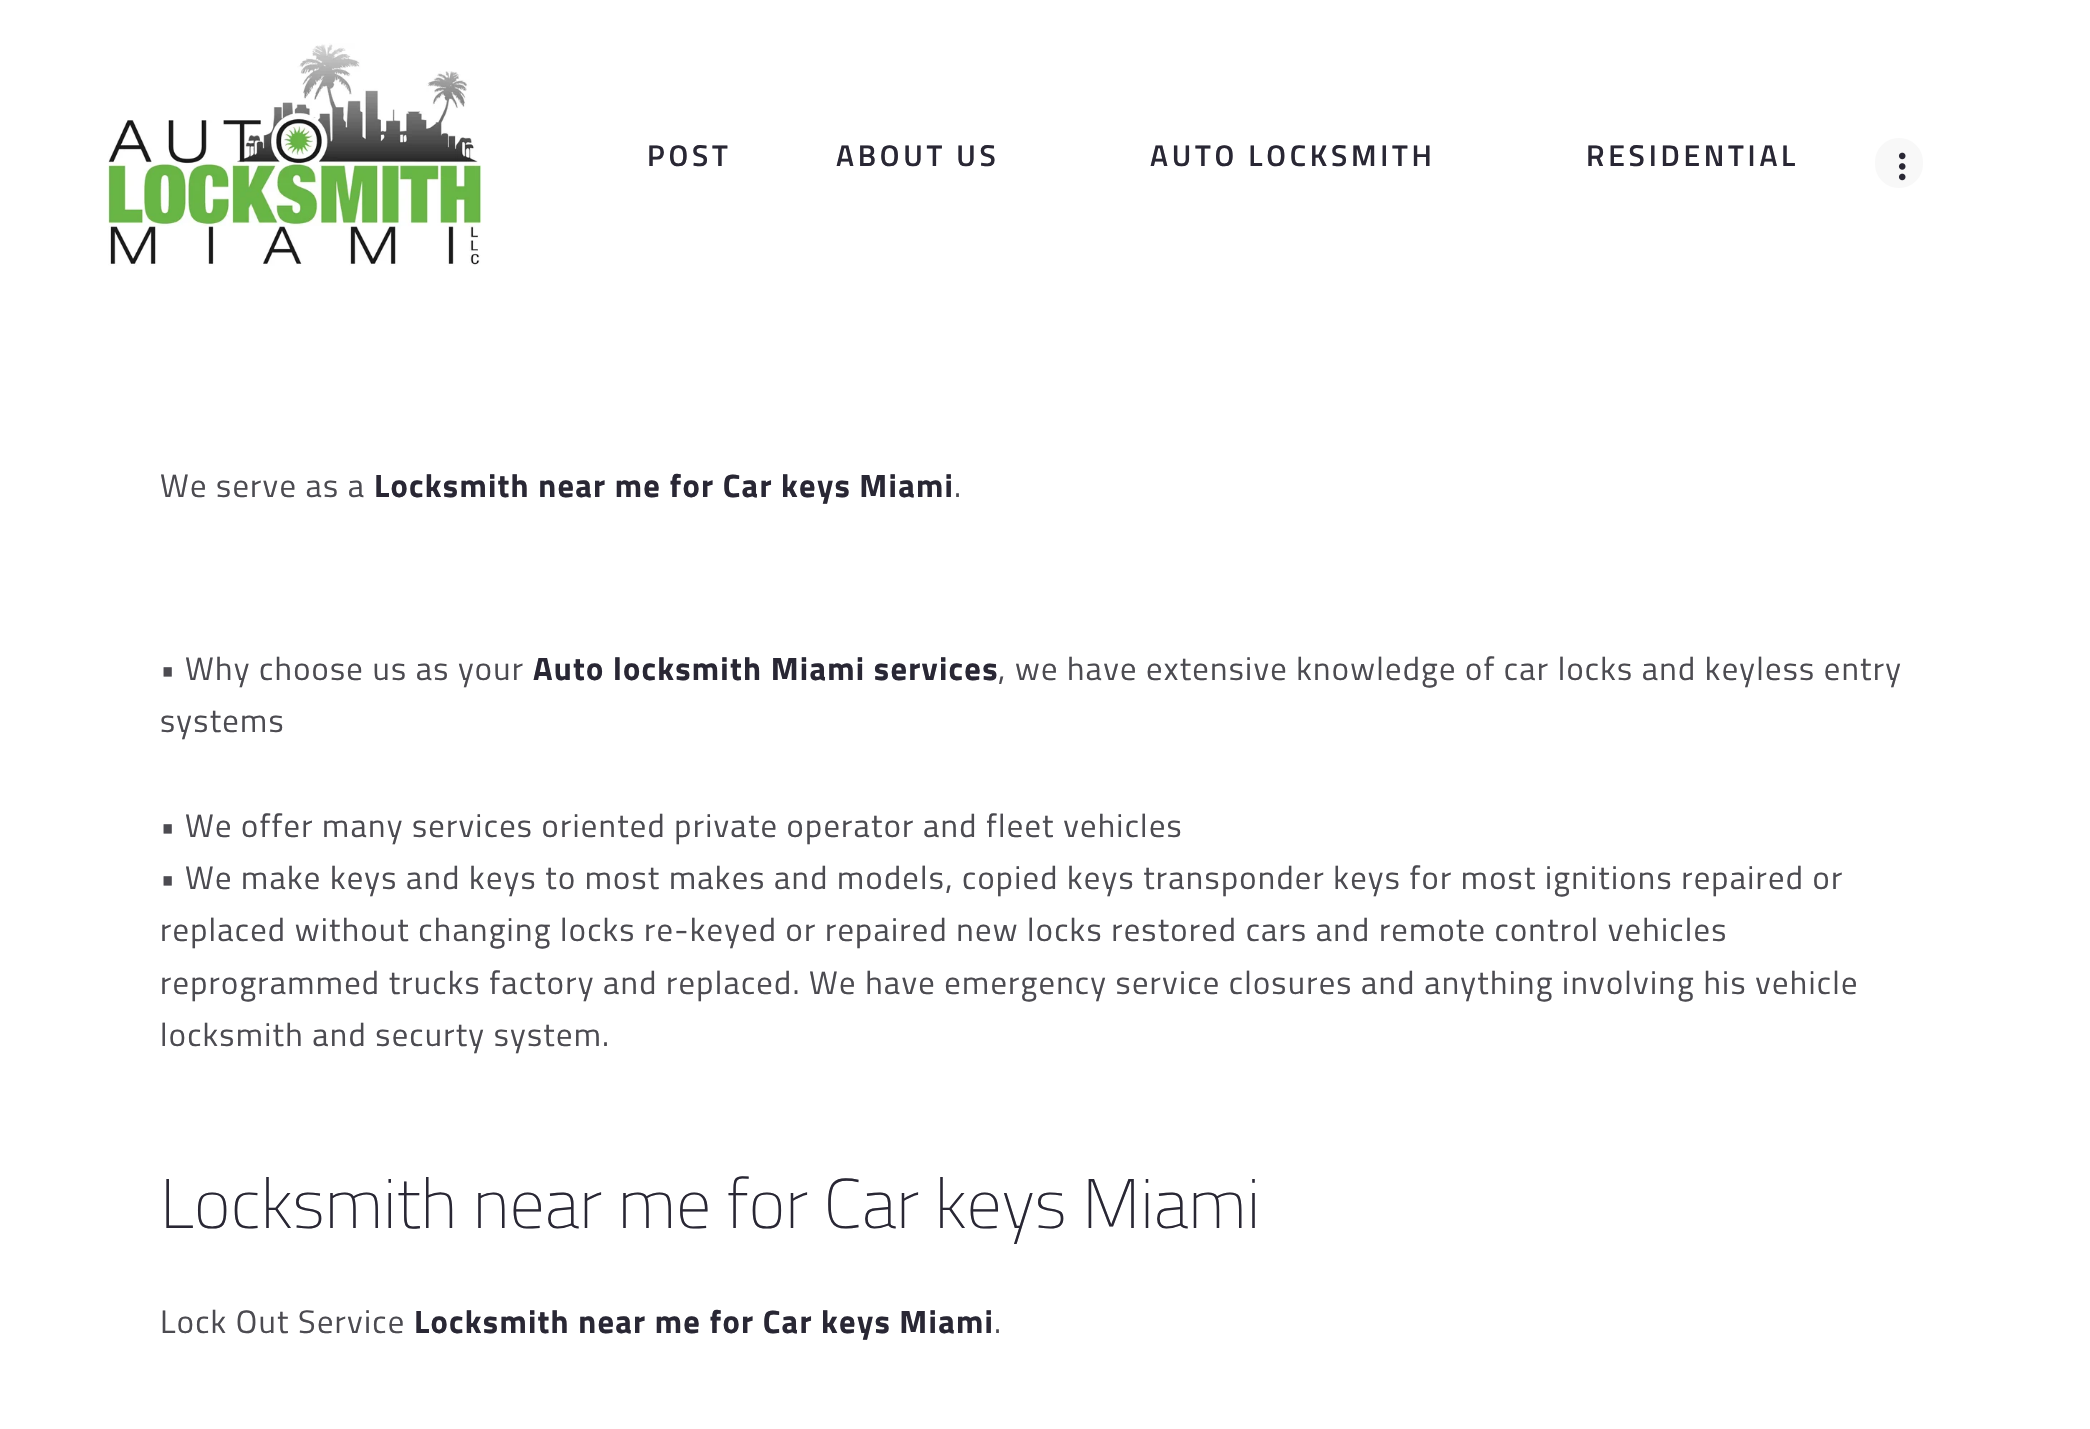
void draw(SkCanvas* c) {
SkPaint p;
p.setAntiAlias(true);
auto F=[&](const char* family, int weight, float size, bool italic = false){SkFontStyle style(weight, SkFontStyle::kNormal_Width,italic ? SkFontStyle::kItalic_Slant : SkFontStyle::kUpright_Slant);SkFont result(fontMgr->matchFamilyStyle(family, style), size);result.setSubpixel(true);return result;};
auto T=[&](const char* s, float x, float y, const SkFont& font){c->drawString(s, x, y, font, p);};
auto L=[&](const char* s, float x, float y, const SkFont& font, const SkPaint& ink, float letter, float word){std::vector<SkGlyphID> glyphs(font.countText(s, strlen(s), SkTextEncoding::kUTF8));std::vector<float> xs(glyphs.size());font.textToGlyphs(s, strlen(s), SkTextEncoding::kUTF8, glyphs);font.getXPos(glyphs, xs, x);float extra = 0;for (size_t i = 0; i < glyphs.size(); i++) {xs[i] += extra;extra += letter + word * (glyphs[i] == font.unicharToGlyph(' '));}c->drawTextBlob(SkTextBlob::MakeFromPosHGlyphs(glyphs, xs, y, font), 0, 0, ink);};
auto Q=[&](float x, float y, float w, float h, float radius){c->drawRoundRect(SkRect::MakeXYWH(x, y, w, h), radius, radius, p);};
auto I=[&](const char* path, float x, float y, float w, float h){auto image = SkImages::DeferredFromEncodedData(SkData::MakeFromFileName(path));c->drawImageRect(image, SkRect::MakeXYWH(x, y, w, h), SkSamplingOptions());};
c->clear(0xffffffff);
I("1.png",107,43,375,223);
auto f1 = F("Titillium Web",600,30);
p.setColor(0xff292734);
L("POST",647,166,f1,p,3.75,0);
L("ABOUT US",836,166,f1,p,3.75,0);
L("AUTO LOCKSMITH",1150,166,f1,p,3.75,0);
L("RESIDENTIAL",1586,166,f1,p,3.75,0);
p.setColor(0xfff8f8f8);
Q(1875,138,48,50,24);
I("2.png",1898,152,8,29);
auto f2 = F("Titillium Web",400,32.5);
p.setColor(0xff4c4b51);
L("We serve as a",160,497,f2,p,1.25,0);
auto f3 = F("Titillium Web",700,32.5);
p.setColor(0xff292734);
L("Locksmith near me for Car keys Miami",374,497,f3,p,1.25,0);
p.setColor(0xff4c4b51);
L(".",954,497,f2,p,1.25,0);
L("• Why choose us as your",160,680,f2,p,1.25,0);
p.setColor(0xff292734);
L("Auto locksmith Miami services",533,680,f3,p,1.25,0);
p.setColor(0xff4c4b51);
L(", we have extensive knowledge of car locks and keyless entry",998,680,f2,p,1.25,0);
L("systems",160,732,f2,p,1.25,0);
L("• We offer many services oriented private operator and fleet vehicles",160,837,f2,p,1.25,0);
L("• We make keys and keys to most makes and models, copied keys transponder keys for most ignitions repaired or",160,889,f2,p,1.25,0);
L("replaced without changing locks re-keyed or repaired new locks restored cars and remote control vehicles",160,941,f2,p,1.25,0);
L("reprogrammed trucks factory and replaced. We have emergency service closures and anything involving his vehicle",160,994,f2,p,1.25,0);
L("locksmith and securty system.",160,1046,f2,p,1.25,0);
auto f4 = F("Titillium Web",100,70);
p.setColor(0xff292734);
T("Locksmith near me for Car keys Miami",160,1228,f4);
p.setColor(0xff4c4b51);
L("Lock Out Service",160,1333,f2,p,1.25,0);
p.setColor(0xff292734);
L("Locksmith near me for Car keys Miami",414,1333,f3,p,1.25,0);
p.setColor(0xff4c4b51);
L(".",994,1333,f2,p,1.25,0);
}
